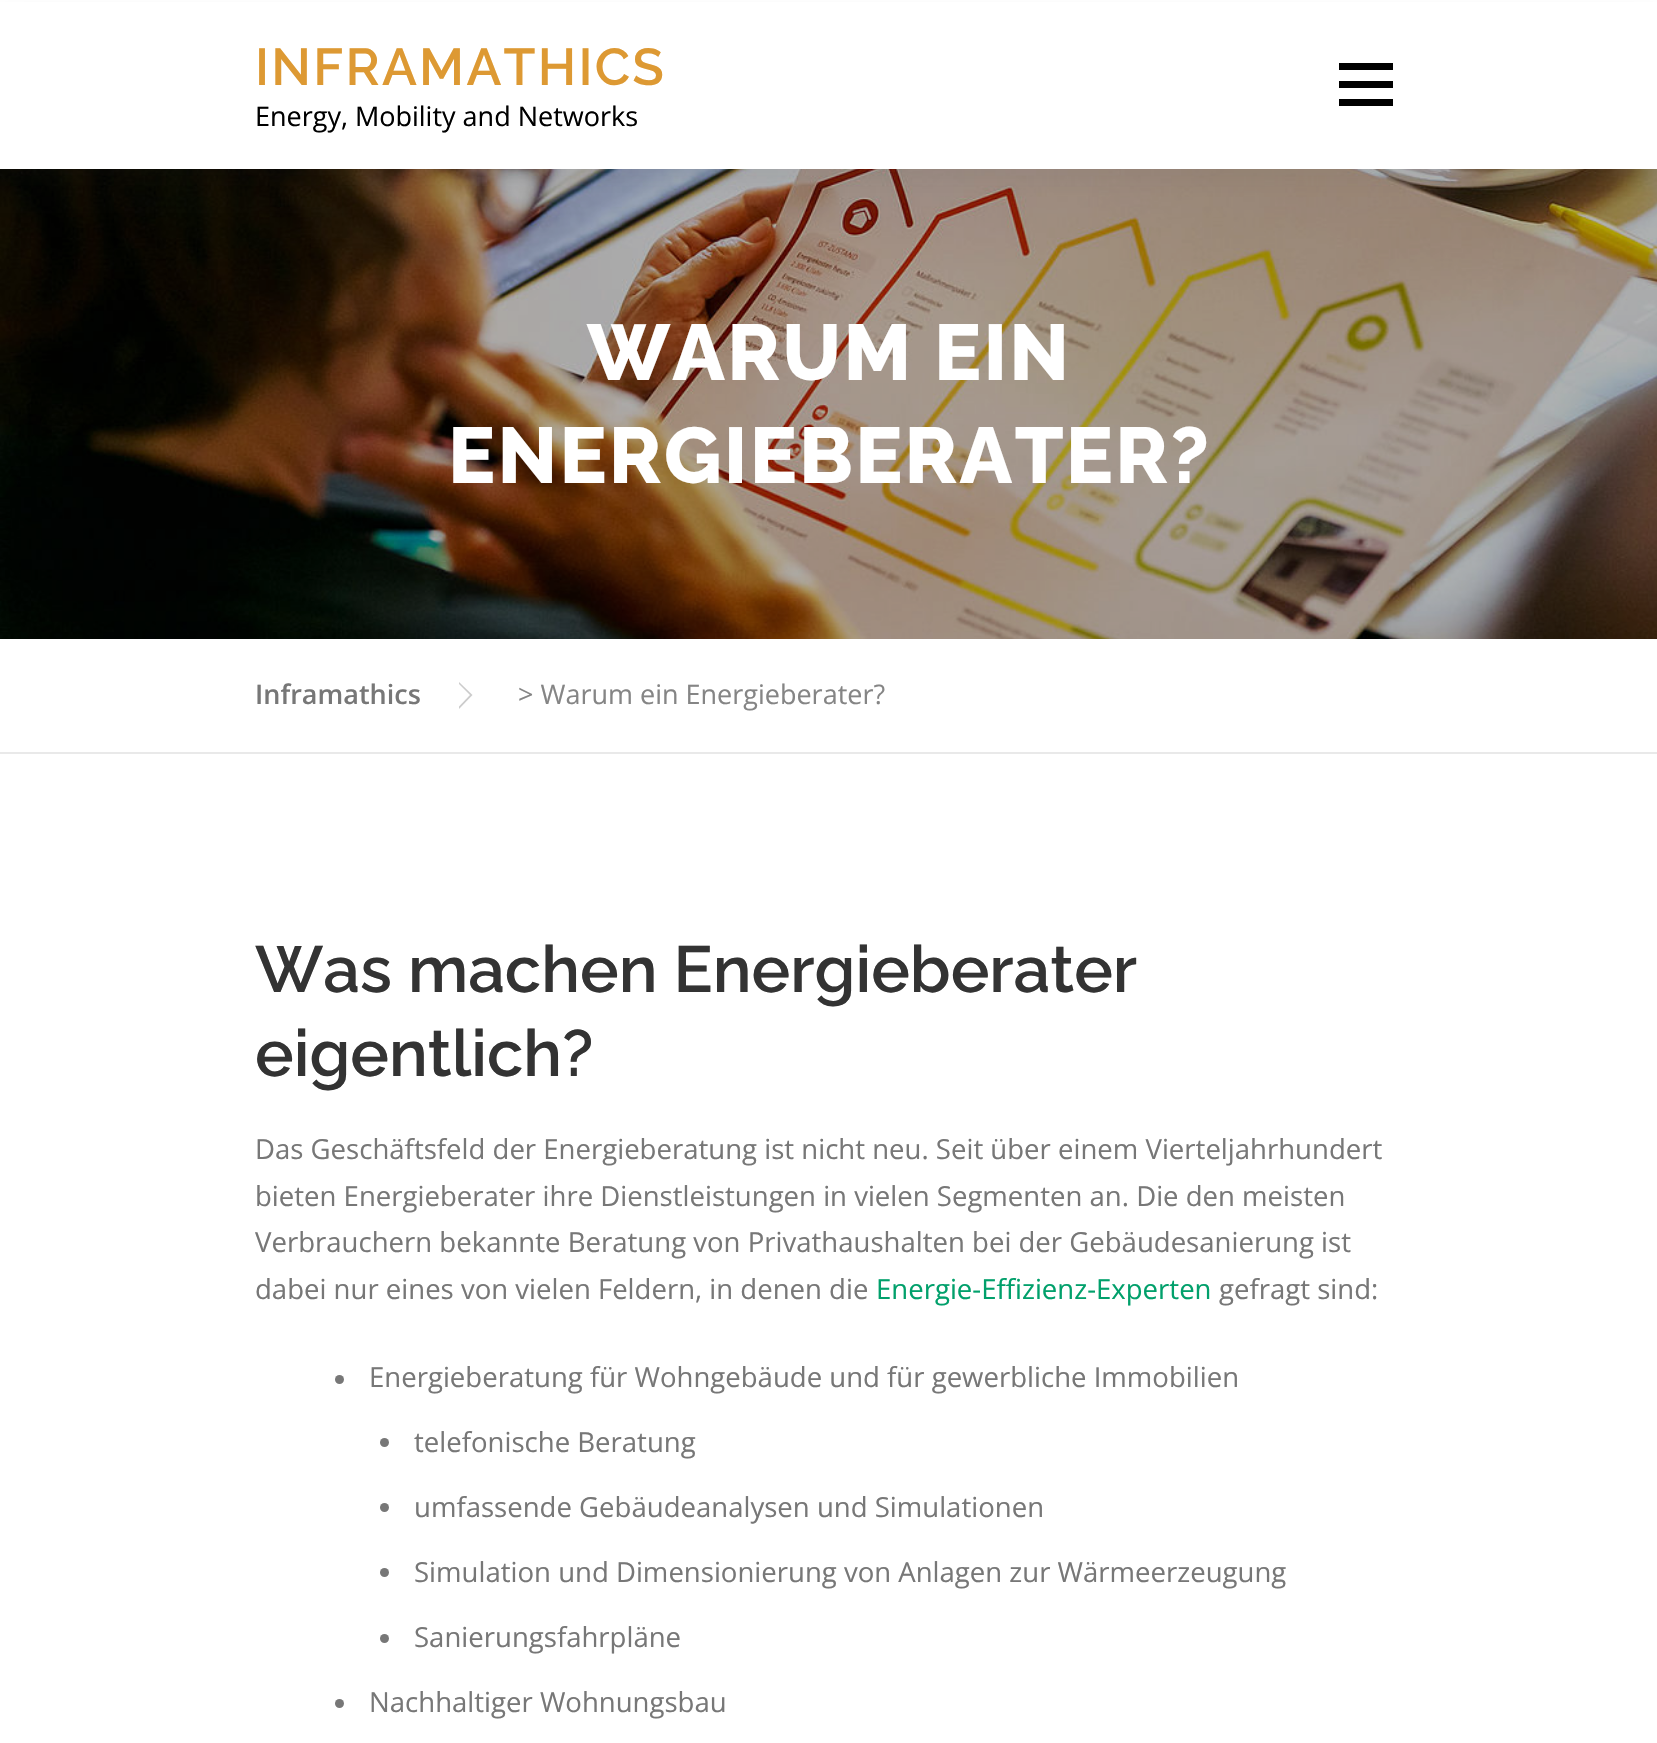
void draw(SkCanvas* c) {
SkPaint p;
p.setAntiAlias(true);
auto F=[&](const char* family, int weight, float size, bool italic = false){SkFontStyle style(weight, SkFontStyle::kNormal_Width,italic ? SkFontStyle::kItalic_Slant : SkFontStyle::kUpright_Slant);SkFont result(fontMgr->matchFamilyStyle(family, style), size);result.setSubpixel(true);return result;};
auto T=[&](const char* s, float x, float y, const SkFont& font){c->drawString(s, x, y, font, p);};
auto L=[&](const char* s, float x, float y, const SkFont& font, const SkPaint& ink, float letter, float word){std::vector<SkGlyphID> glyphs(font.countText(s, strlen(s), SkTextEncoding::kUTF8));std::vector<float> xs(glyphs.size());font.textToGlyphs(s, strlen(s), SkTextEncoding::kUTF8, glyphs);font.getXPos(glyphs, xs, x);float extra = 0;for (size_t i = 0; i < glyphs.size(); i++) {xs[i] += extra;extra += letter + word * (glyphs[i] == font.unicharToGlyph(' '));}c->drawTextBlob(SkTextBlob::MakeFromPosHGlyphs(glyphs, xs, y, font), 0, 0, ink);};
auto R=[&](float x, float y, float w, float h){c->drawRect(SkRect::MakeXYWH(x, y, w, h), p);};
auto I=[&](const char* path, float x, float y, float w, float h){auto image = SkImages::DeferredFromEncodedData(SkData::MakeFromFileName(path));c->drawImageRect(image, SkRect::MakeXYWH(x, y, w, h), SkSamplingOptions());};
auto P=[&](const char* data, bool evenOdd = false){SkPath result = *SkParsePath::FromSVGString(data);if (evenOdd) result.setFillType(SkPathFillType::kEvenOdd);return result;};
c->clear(0xffffffff);
I("1.png",0,169,1657,470);
p.setColor(0x0f323232);
p.setMaskFilter(SkMaskFilter::MakeBlur(kNormal_SkBlurStyle, 11));
c->drawRect(SkRect::MakeXYWH(0,11,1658,169),p);
p.setMaskFilter(nullptr);
p.setColor(0xffffffff);
R(0,2,1657,167);
auto f1 = F("Raleway",600,51.75);
p.setColor(0xffdd9933);
L("INFRAMATHICS",255,85,f1,p,2.25,0);
auto f2 = F("Open Sans",400,27);
p.setColor(0xff000000);
T("Energy, Mobility and Networks",255,126,f2);
R(1339,81,54,7);
R(1339,63,54,7);
R(1339,99,54,7);
auto f3 = F("Raleway",800,78.75);
p.setColor(0xffffffff);
L("WARUM EIN",587,380,f3,p,2.25,0);
L("ENERGIEBERATER?",448,483,f3,p,2.25,0);
p.setColor(0xffe9e9e9);
R(0,752,1657,2);
auto f4 = F("Open Sans",600,27);
p.setColor(0xff777777);
T("Inframathics",255,704,f4);
p.setColor(0xffcccccc);
c->drawPath(P("M459 709v-27l13.5 13z"),p);
p.setColor(0xffffffff);
c->drawPath(P("M459 706.5v-22.5l11 11z"),p);
p.setColor(0xff858585);
T("> Warum ein Energieberater?",518,704,f2);
auto f5 = F("Raleway",600,65);
p.setColor(0xff333333);
T("Was machen Energieberater",255,992,f5);
T("eigentlich?",255,1076,f5);
auto f6 = F("Open Sans",400,27.55);
p.setColor(0xff777777);
T("Das Geschäftsfeld der Energieberatung ist nicht neu. Seit über einem Vierteljahrhundert",255,1159,f6);
T("bieten Energieberater ihre Dienstleistungen in vielen Segmenten an. Die den meisten",255,1206,f6);
T("Verbrauchern bekannte Beratung von Privathaushalten bei der Gebäudesanierung ist",255,1252,f6);
T("dabei nur eines von vielen Feldern, in denen die",255,1299,f6);
p.setColor(0xff01a06b);
T("Energie-Effizienz-Experten",876,1299,f6);
p.setColor(0xff777777);
T("gefragt sind:",1219,1299,f6);
c->drawCircle(339.5,1379.5,4.5,p);
T("Energieberatung für Wohngebäude und für gewerbliche Immobilien",369,1387,f6);
c->drawCircle(384.5,1442.5,4.5,p);
T("telefonische Beratung",414,1452,f6);
c->drawCircle(384.5,1507.5,4.5,p);
T("umfassende Gebäudeanalysen und Simulationen",414,1517,f6);
c->drawCircle(384.5,1572.5,4.5,p);
T("Simulation und Dimensionierung von Anlagen zur Wärmeerzeugung",414,1582,f6);
c->drawCircle(384.5,1638.5,4.5,p);
T("Sanierungsfahrpläne",414,1647,f6);
c->drawCircle(339.5,1703.5,4.5,p);
T("Nachhaltiger Wohnungsbau",369,1712,f6);
}
